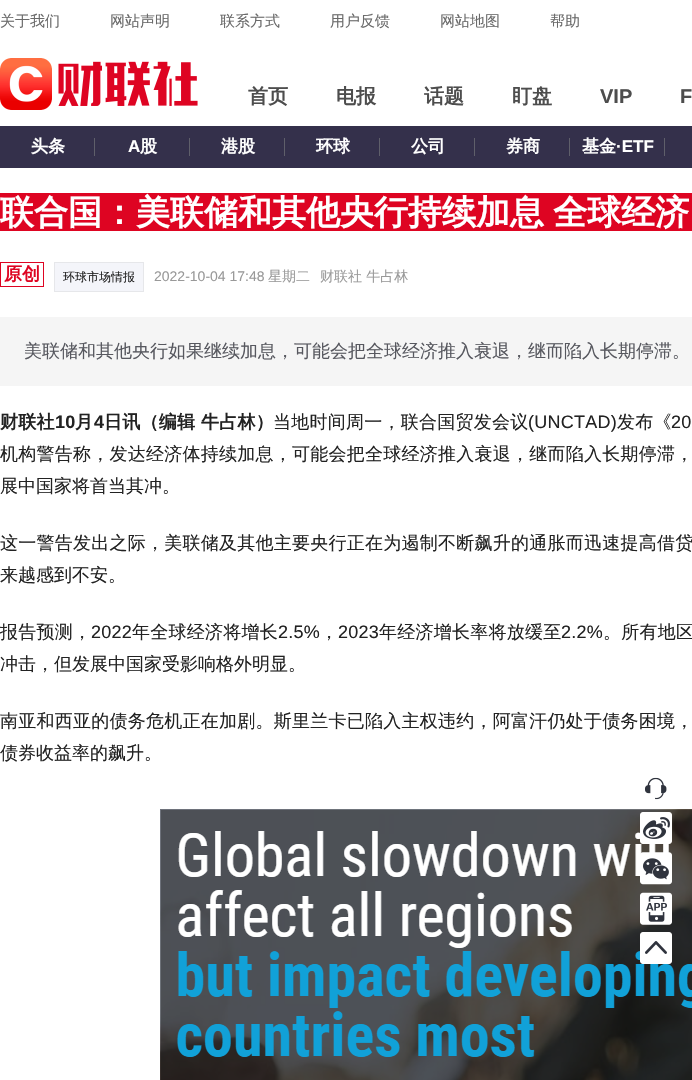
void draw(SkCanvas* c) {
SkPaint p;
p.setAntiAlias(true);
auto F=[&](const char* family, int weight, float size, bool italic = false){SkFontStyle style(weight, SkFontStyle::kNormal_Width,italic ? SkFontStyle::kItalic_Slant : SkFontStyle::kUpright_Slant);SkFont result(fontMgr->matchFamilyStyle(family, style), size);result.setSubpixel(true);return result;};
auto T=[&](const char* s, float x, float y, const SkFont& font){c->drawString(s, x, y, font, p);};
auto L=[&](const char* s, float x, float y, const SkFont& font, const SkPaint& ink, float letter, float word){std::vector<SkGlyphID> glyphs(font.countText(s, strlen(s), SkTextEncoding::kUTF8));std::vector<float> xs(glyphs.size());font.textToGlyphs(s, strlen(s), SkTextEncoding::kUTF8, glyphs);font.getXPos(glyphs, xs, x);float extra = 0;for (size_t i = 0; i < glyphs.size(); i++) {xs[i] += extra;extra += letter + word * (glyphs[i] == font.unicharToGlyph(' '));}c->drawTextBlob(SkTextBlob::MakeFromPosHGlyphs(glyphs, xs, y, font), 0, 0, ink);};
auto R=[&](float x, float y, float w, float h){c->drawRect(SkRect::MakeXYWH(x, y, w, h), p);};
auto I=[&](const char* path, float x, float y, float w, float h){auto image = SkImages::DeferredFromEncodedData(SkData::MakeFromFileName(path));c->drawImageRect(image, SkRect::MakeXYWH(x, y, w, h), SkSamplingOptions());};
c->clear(0xffffffff);
auto f1 = F("WenQuanYi Zen Hei",500,15);
p.setColor(0xff6a6a6a);
T("关于我们",0,26,f1);
T("网站声明",110,26,f1);
T("联系方式",220,26,f1);
T("用户反馈",330,26,f1);
T("网站地图",440,26,f1);
T("帮助",550,26,f1);
I("1.png",0,58,198,52);
auto f2 = F("WenQuanYi Zen Hei",700,20);
p.setColor(0xff4d4d4d);
T("首页",248,103,f2);
T("电报",336,103,f2);
T("话题",424,103,f2);
T("盯盘",512,103,f2);
auto f3 = F("Liberation Sans",700,20);
T("VIP",600,103,f3);
T("F",680,103,f3);
p.setColor(0xff34304b);
R(0,126,692,42);
auto f4 = F("WenQuanYi Zen Hei",700,17);
p.setColor(0xffffffff);
T("头条",31,152,f4);
p.setColor(0xff5f5f6a);
R(94,138,1,18);
auto f5 = F("Liberation Sans",700,17);
p.setColor(0xffffffff);
T("A",128,152,f5);
T("股",140,152,f4);
p.setColor(0xff5f5f6a);
R(189,138,1,18);
p.setColor(0xffffffff);
T("港股",221,152,f4);
p.setColor(0xff5f5f6a);
R(284,138,1,18);
p.setColor(0xffffffff);
T("环球",316,152,f4);
p.setColor(0xff5f5f6a);
R(379,138,1,18);
p.setColor(0xffffffff);
T("公司",411,152,f4);
p.setColor(0xff5f5f6a);
R(474,138,1,18);
p.setColor(0xffffffff);
T("券商",506,152,f4);
p.setColor(0xff5f5f6a);
R(569,138,1,18);
p.setColor(0xffffffff);
T("基金",582,152,f4);
T("·ETF",616,152,f5);
p.setColor(0xff5f5f6a);
R(664,138,1,18);
p.setColor(0xffde0422);
R(0,193,692,38);
auto f6 = F("WenQuanYi Zen Hei",700,34);
p.setColor(0xffffffff);
L("联合国：美联储和其他央行持续加息 全球经济",0,224,f6,p,0,-1);
p.setStroke(true);
p.setStrokeWidth(1);
p.setColor(0xffde0422);
c->drawRect(SkRect::MakeXYWH(.5,262.5,43,24),p);
auto f7 = F("WenQuanYi Zen Hei",700,18);
p.setStroke(false);
T("原创",4,280,f7);
p.setColor(0xfff4f5fa);
c->drawRect(SkRect::MakeXYWH(54.5,262.5,89,29),p);
p.setStroke(true);
p.setColor(0xffe6e7ea);
c->drawRect(SkRect::MakeXYWH(54.5,262.5,89,29),p);
auto f8 = F("WenQuanYi Zen Hei",500,12);
p.setStroke(false);
p.setColor(0xff222222);
T("环球市场情报",63,281,f8);
auto f9 = F("Liberation Sans",400,14);
p.setColor(0xff999999);
T("2022-10-04 17:48",154,281,f9);
auto f10 = F("WenQuanYi Zen Hei",500,14);
T("星期二",268,281,f10);
T("财联社 牛占林",320,281,f10);
p.setColor(0xfff5f5f5);
R(0,317,692,69);
auto f11 = F("WenQuanYi Zen Hei",500,18);
p.setColor(0xff57585f);
T("美联储和其他央行如果继续加息，可能会把全球经济推入衰退，继而陷入长期停滞。",24,357,f11);
p.setColor(0xff222222);
L("财联社",0,428,f7,p,.25,0);
auto f12 = F("Liberation Sans",700,18);
L("10",55,428,f12,p,.25,0);
L("月",75,428,f7,p,.25,0);
L("4",94,428,f12,p,.25,0);
L("日讯（编辑 牛占林）",104,428,f7,p,.25,0);
L("当地时间周一，联合国贸发会议",273,428,f11,p,.25,0);
auto f13 = F("Liberation Sans",400,18);
L("(UNCTAD)",528,428,f13,p,.25,0);
L("发布《",617,428,f11,p,.25,0);
L("20",671,428,f13,p,.25,0);
L("机构警告称，发达经济体持续加息，可能会把全球经济推入衰退，继而陷入长期停滞，",0,460,f11,p,.25,0);
T("展中国家将首当其冲。",0,492,f11);
L("这一警告发出之际，美联储及其他主要央行正在为遏制不断飙升的通胀而迅速提高借贷",0,549,f11,p,.25,0);
T("来越感到不安。",0,581,f11);
L("报告预测，",0,638,f11,p,.25,0);
L("2022",91,638,f13,p,.25,0);
L("年全球经济将增长",132,638,f11,p,.25,0);
L("2.5%",278,638,f13,p,.25,0);
L("，",320,638,f11,p,.25,0);
L("2023",338,638,f13,p,.25,0);
L("年经济增长率将放缓至",379,638,f11,p,.25,0);
L("2.2%",561,638,f13,p,.25,0);
L("。所有地区",603,638,f11,p,.25,0);
T("冲击，但发展中国家受影响格外明显。",0,670,f11);
L("南亚和西亚的债务危机正在加剧。斯里兰卡已陷入主权违约，阿富汗仍处于债务困境，",0,727,f11,p,.25,0);
T("债券收益率的飙升。",0,759,f11);
I("2.png",160,809,532,271);
I("3.png",645,777,22,23);
I("4.png",640,812,32,32);
I("5.png",640,852,32,33);
I("6.png",640,892,32,33);
I("7.png",640,932,32,32);
}
